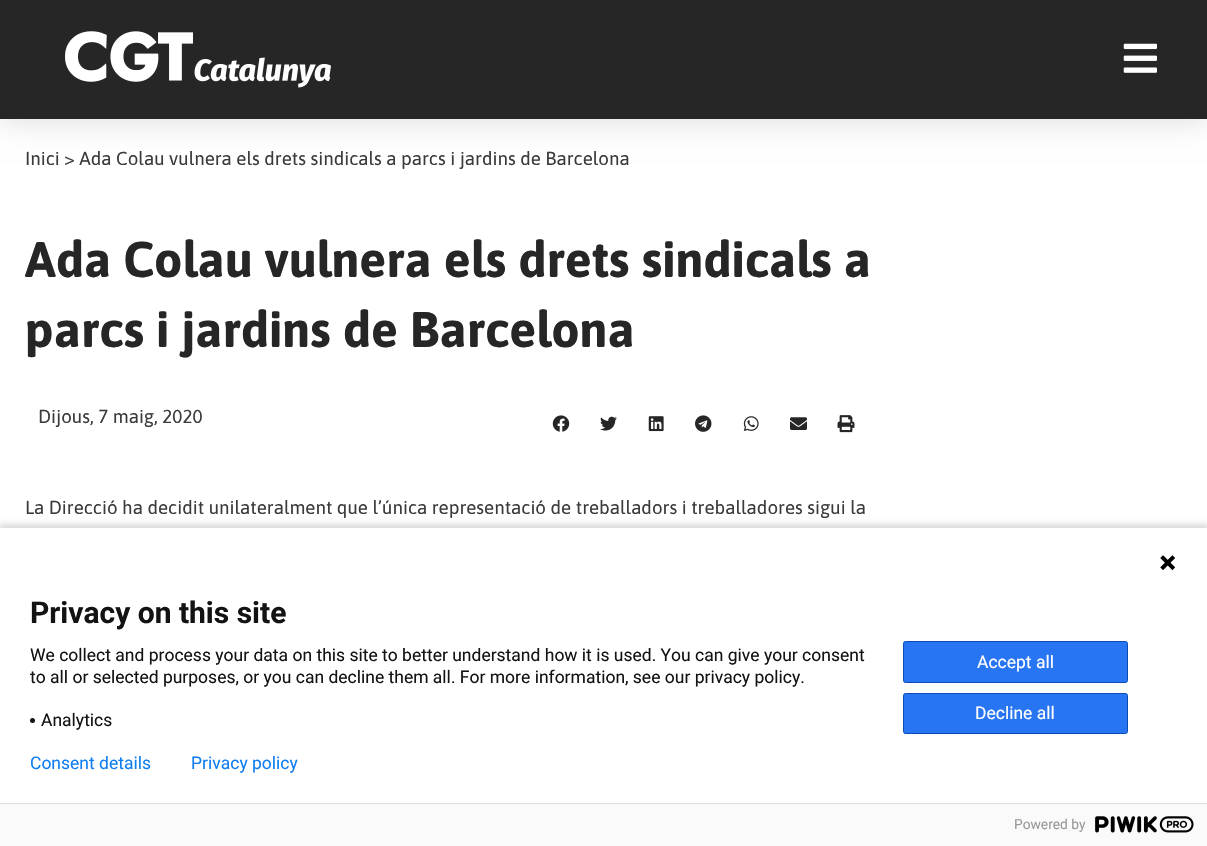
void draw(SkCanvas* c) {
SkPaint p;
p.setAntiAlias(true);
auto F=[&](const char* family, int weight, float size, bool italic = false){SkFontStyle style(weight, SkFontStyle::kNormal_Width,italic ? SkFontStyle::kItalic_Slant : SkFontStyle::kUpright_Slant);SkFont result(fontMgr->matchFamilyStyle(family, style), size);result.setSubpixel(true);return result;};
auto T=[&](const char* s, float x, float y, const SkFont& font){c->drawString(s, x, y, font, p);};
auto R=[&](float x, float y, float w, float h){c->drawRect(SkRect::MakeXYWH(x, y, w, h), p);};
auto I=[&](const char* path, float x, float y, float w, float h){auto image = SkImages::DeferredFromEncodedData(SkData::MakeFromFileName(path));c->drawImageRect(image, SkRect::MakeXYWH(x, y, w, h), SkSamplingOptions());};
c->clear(0xffffffff);
p.setColor(0x26000000);
p.setMaskFilter(SkMaskFilter::MakeBlur(kNormal_SkBlurStyle, 15));
c->drawRect(SkRect::MakeXYWH(0,0,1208,119),p);
p.setMaskFilter(nullptr);
p.setColor(0xff262626);
R(0,0,1207,119);
I("1.png",65,31,266,57);
I("2.png",1123,43,34,30);
auto f1 = F("Asap",400,18.75);
p.setColor(0xff3c3b3b);
T("Inici > Ada Colau vulnera els drets sindicals a parcs i jardins de Barcelona",25,165,f1);
auto f2 = F("Asap",700,50);
p.setColor(0xff262626);
T("Ada Colau vulnera els drets sindicals a",25,277,f2);
T("parcs i jardins de Barcelona",25,347,f2);
p.setColor(0xff3c3b3b);
T("Dijous, 7 maig, 2020",38,423,f1);
I("3.png",552,415,18,17);
I("4.png",600,416,17,15);
I("5.png",648,416,16,16);
I("6.png",695,415,17,17);
I("7.png",743,416,16,15);
I("8.png",790,417,17,13);
I("9.png",837,415,18,18);
T("La Direcció ha decidit unilateralment que l’única representació de treballadors i treballadores sigui la",25,514,f1);
p.setColor(0x24000000);
p.setMaskFilter(SkMaskFilter::MakeBlur(kNormal_SkBlurStyle, 3));
c->drawRect(SkRect::MakeXYWH(-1,524,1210,321),p);
p.setMaskFilter(nullptr);
p.setColor(0xffffffff);
R(0,528,1207,275);
I("10.png",1160,555,16,16);
auto f3 = F("Roboto",700,30);
p.setColor(0xff131313);
T("Privacy on this site",30,623,f3);
auto f4 = F("Roboto",400,17.5);
T("We collect and process your data on this site to better understand how it is used. You can give your consent",30,661,f4);
T("to all or selected purposes, or you can decline them all. For more information, see our privacy policy.",30,683,f4);
c->drawCircle(32.5,720.5,2.5,p);
T("Analytics",41,726,f4);
p.setColor(0xff2775f2);
c->drawRoundRect(SkRect::MakeXYWH(903.5,641.5,224,41),2,2,p);
p.setStroke(true);
p.setStrokeWidth(1);
p.setColor(0xff0b4bb3);
c->drawRoundRect(SkRect::MakeXYWH(903.5,641.5,224,41),2,2,p);
p.setStroke(false);
p.setColor(0xffffffff);
T("Accept all",977,668,f4);
p.setColor(0xff2775f2);
c->drawRoundRect(SkRect::MakeXYWH(903.5,693.5,224,40),2,2,p);
p.setStroke(true);
p.setColor(0xff0b4bb3);
c->drawRoundRect(SkRect::MakeXYWH(903.5,693.5,224,40),2,2,p);
p.setStroke(false);
p.setColor(0xffffffff);
T("Decline all",975,719,f4);
p.setColor(0xff107ef1);
T("Consent details",30,769,f4);
T("Privacy policy",191,769,f4);
p.setColor(0xfffafafa);
R(0,804,1207,42);
p.setColor(0xffdddddd);
R(0,803,1207,1);
auto f5 = F("Roboto",400,13.75);
p.setColor(0xff999999);
T("Powered by",1014,829,f5);
I("11.png",1095,816,99,17);
}
